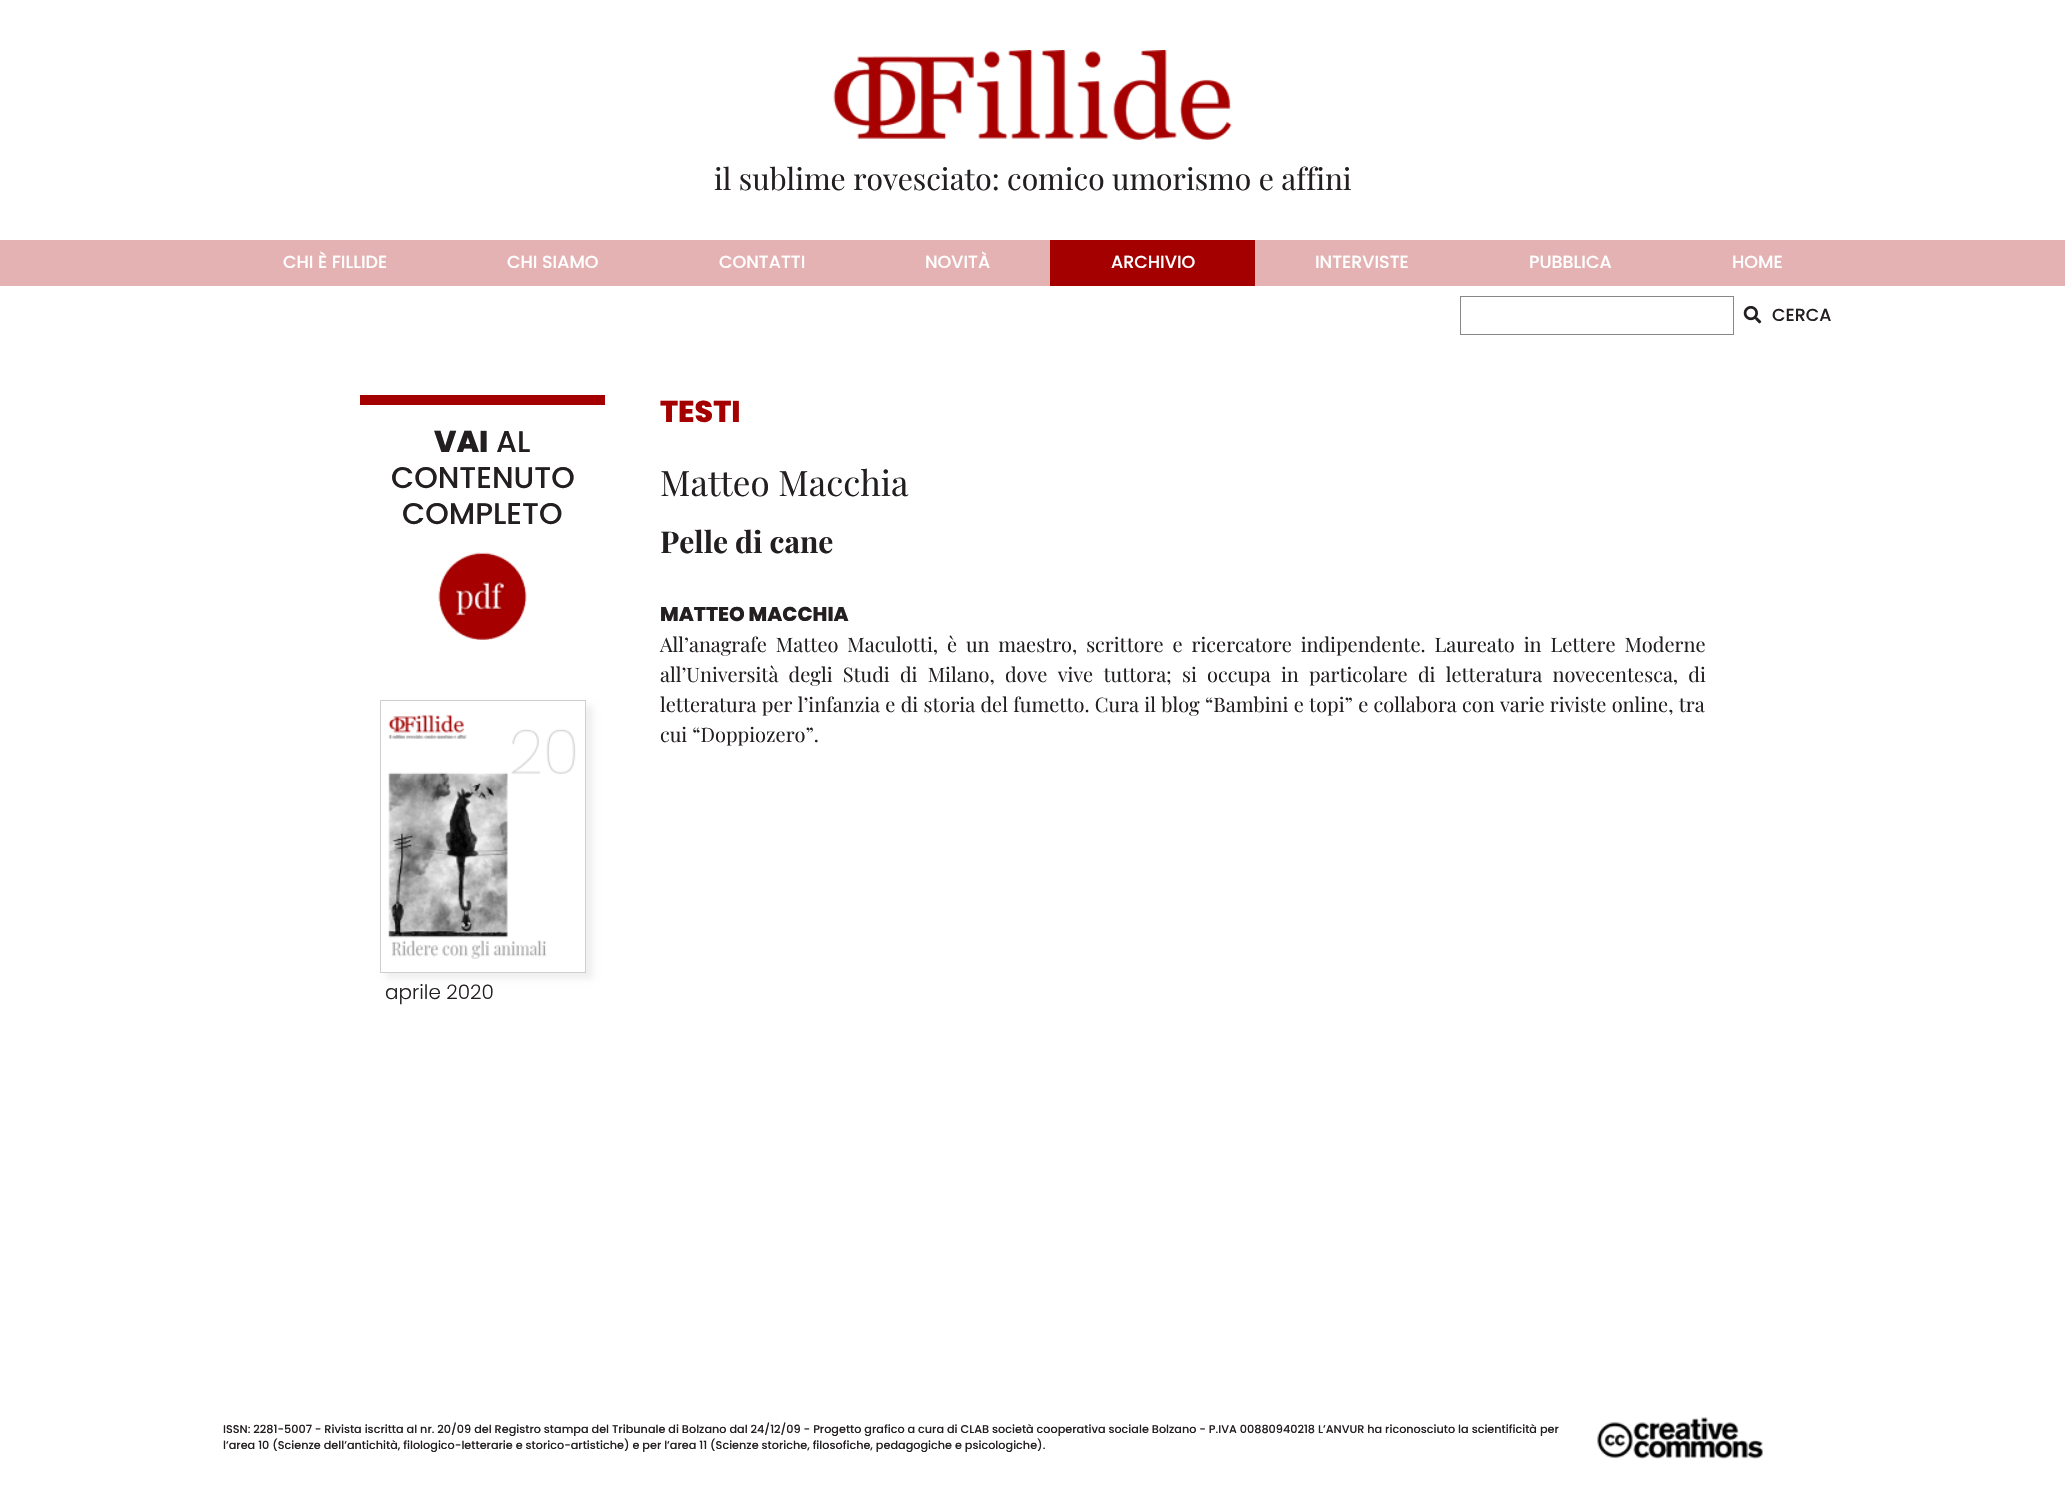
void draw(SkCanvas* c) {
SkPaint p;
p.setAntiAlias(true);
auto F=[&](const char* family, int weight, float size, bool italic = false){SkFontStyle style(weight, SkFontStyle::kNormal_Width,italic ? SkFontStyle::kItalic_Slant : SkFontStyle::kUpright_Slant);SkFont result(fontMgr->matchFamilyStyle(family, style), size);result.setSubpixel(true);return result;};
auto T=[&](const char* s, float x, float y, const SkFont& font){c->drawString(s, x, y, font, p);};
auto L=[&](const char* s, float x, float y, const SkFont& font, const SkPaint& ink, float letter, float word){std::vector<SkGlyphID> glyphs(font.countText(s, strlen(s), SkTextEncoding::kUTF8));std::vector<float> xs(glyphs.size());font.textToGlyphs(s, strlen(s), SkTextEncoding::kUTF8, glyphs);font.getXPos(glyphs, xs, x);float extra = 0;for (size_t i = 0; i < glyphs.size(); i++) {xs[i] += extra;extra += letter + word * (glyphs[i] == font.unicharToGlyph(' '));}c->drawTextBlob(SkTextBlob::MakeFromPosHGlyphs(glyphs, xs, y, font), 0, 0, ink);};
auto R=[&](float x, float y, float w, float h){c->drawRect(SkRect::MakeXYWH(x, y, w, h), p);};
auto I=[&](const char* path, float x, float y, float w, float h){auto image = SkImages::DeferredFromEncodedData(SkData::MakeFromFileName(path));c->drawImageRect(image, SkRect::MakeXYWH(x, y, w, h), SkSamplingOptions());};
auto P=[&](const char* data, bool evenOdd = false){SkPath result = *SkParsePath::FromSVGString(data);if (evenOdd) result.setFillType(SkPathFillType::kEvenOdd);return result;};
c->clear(0xffffffff);
I("1.png",833,50,399,90);
auto f1 = F("Playfair Display",400,30);
p.setColor(0xff231f20);
T("il sublime rovesciato: comico umorismo e affini",714,190,f1);
p.setColor(0xffe4b2b2);
R(0,240,2065,46);
auto f2 = F("Poppins",500,17.5);
p.setColor(0xffffffff);
T("CHI È FILLIDE",283,268,f2);
T("CHI SIAMO",507,268,f2);
T("CONTATTI",719,268,f2);
T("NOVITÀ",925,268,f2);
p.setColor(0xffa50000);
R(1050,240,205,46);
p.setColor(0xffffffff);
T("ARCHIVIO",1111,268,f2);
T("INTERVISTE",1315,268,f2);
T("PUBBLICA",1529,268,f2);
T("HOME",1732,268,f2);
p.setStroke(true);
p.setStrokeWidth(1);
p.setColor(0xff868789);
c->drawRect(SkRect::MakeXYWH(1460.5,296.5,273,38),p);
I("2.png",1743,305,19,19);
p.setStroke(false);
p.setColor(0xff231f20);
T("CERCA",1772,321,f2);
p.setColor(0xffa50000);
R(360,395,245,10);
auto f3 = F("Poppins",800,30);
p.setColor(0xff231f20);
T("VAI",434,452,f3);
auto f4 = F("Poppins",500,30);
T("AL",496,452,f4);
T("CONTENUTO",391,488,f4);
T("COMPLETO",402,524,f4);
I("3.png",438,552,89,88);
c->save();
c->clipPath(P("M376 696h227v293h-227zm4 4h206v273h-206z",true),true);
p.setColor(0xfff0f0f0);
p.setMaskFilter(SkMaskFilter::MakeBlur(kNormal_SkBlurStyle, 3));
c->drawRect(SkRect::MakeXYWH(386,706,207,273),p);
p.setMaskFilter(nullptr);
c->restore();
p.setStroke(true);
p.setColor(0xffcfcfd1);
c->drawRect(SkRect::MakeXYWH(380.5,700.5,205,272),p);
I("4.png",388,714,188,245);
auto f5 = F("Poppins",300,20);
p.setStroke(false);
p.setColor(0xff231f20);
T("aprile 2020",385,999,f5);
p.setColor(0xffa50000);
T("TESTI",660,422,f3);
auto f6 = F("Playfair Display",400,35);
p.setColor(0xff231f20);
T("Matteo Macchia",660,496,f6);
auto f7 = F("Playfair Display",700,30);
T("Pelle di cane",660,553,f7);
auto f8 = F("Poppins",800,20);
T("MATTEO MACCHIA",660,621,f8);
auto f9 = F("Playfair Display",400,20);
L("All’anagrafe Matteo Maculotti, è un maestro, scrittore e ricercatore indipendente. Laureato in Lettere Moderne",660,652,f9,p,0,3.9);
L("all’Università degli Studi di Milano, dove vive tuttora; si occupa in particolare di letteratura novecentesca, di",660,682,f9,p,0,5.25);
L("letteratura per l’infanzia e di storia del fumetto. Cura il blog “Bambini e topi” e collabora con varie riviste online, tra",660,712,f9,p,0,.3);
T("cui “Doppiozero”.",660,742,f9);
auto f10 = F("Poppins",500,11.25);
T("ISSN: 2281-5007 - Rivista iscritta al nr. 20/09 del Registro stampa del Tribunale di Bolzano dal 24/12/09 - Progetto grafico a cura di CLAB società cooperativa sociale Bolzano - P.IVA 00880940218 L’ANVUR ha riconosciuto la scientificità per",223,1433,f10);
T("l’area 10 (Scienze dell’antichità, filologico-letterarie e storico-artistiche) e per l’area 11 (Scienze storiche, filosofiche, pedagogiche e psicologiche).",223,1449,f10);
I("5.png",1597,1417,166,42);
}
